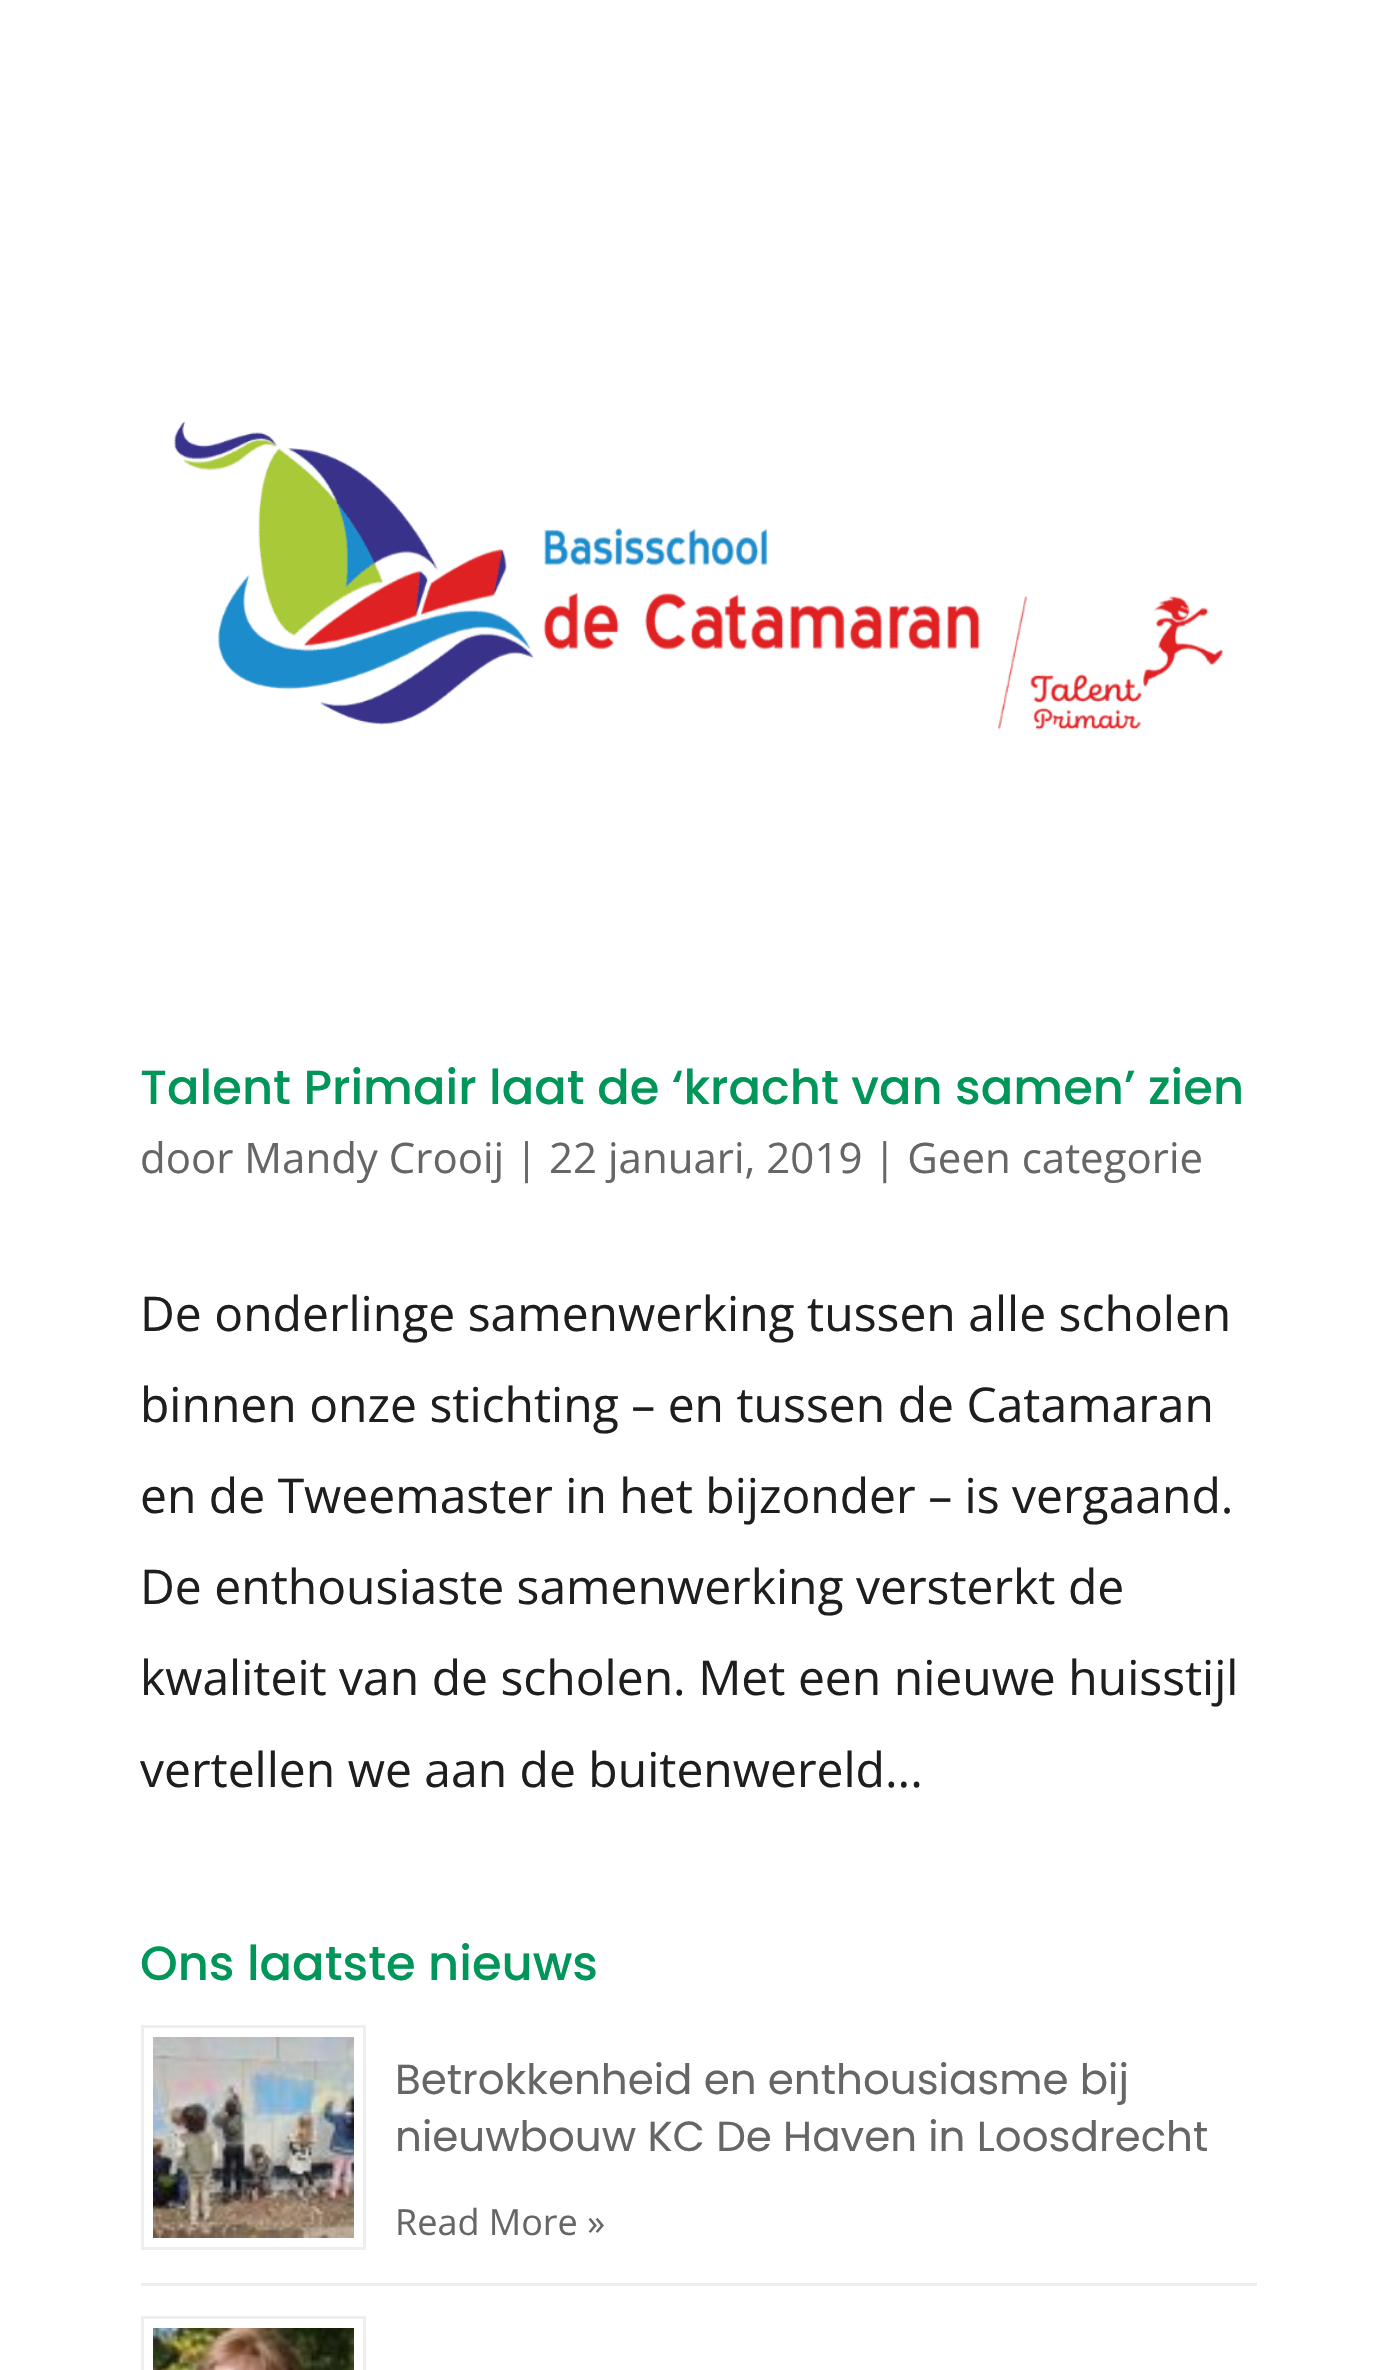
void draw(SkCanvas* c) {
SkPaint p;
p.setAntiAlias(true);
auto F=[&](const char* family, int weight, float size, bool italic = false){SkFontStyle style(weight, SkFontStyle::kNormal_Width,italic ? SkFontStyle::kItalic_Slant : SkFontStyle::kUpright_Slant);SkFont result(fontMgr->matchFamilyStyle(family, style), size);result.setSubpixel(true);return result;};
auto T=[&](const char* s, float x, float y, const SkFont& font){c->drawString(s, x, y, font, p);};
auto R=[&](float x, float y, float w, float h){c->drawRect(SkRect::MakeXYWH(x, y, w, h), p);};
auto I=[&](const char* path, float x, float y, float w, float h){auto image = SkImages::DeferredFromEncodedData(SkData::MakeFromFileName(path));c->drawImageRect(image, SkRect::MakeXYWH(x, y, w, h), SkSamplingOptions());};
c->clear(0xffffffff);
I("1.png",174,421,1049,309);
auto f1 = F("Poppins",500,48);
p.setColor(0xff009659);
T("Talent Primair laat de ‘kracht van samen’ zien",140,1104,f1);
auto f2 = F("Open Sans",400,42);
p.setColor(0xff666666);
T("door Mandy Crooij | 22 januari, 2019 | Geen categorie",140,1173,f2);
auto f3 = F("Open Sans",400,48);
p.setColor(0xff1e1e1e);
T("De onderlinge samenwerking tussen alle scholen",140,1331,f3);
T("binnen onze stichting – en tussen de Catamaran",140,1422,f3);
T("en de Tweemaster in het bijzonder – is vergaand.",140,1513,f3);
T("De enthousiaste samenwerking versterkt de",140,1604,f3);
T("kwaliteit van de scholen. Met een nieuwe huisstijl",140,1695,f3);
T("vertellen we aan de buitenwereld...",140,1787,f3);
p.setColor(0xff009659);
T("Ons laatste nieuws",140,1980,f1);
p.setColor(0xffeeeeee);
R(141,2283,1116,3);
p.setStroke(true);
p.setStrokeWidth(3);
c->drawRect(SkRect::MakeXYWH(142.5,2026.5,222,222),p);
I("2.png",153,2037,201,201);
auto f4 = F("Poppins",400,42);
p.setStroke(false);
p.setColor(0xff666666);
T("Betrokkenheid en enthousiasme bij",395,2094,f4);
T("nieuwbouw KC De Haven in Loosdrecht",395,2151,f4);
auto f5 = F("Open Sans",400,36);
T("Read More »",395,2235,f5);
p.setStroke(true);
p.setColor(0xffeeeeee);
c->drawRect(SkRect::MakeXYWH(142.5,2317.5,222,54),p);
I("3.png",153,2328,201,42);
}
